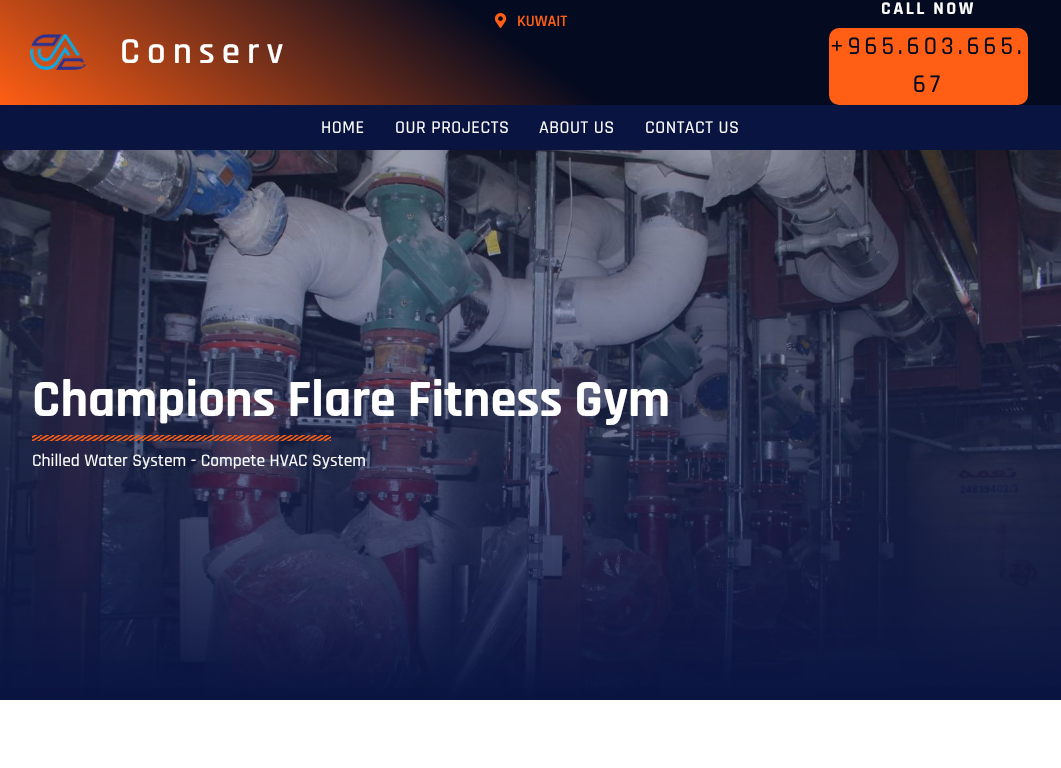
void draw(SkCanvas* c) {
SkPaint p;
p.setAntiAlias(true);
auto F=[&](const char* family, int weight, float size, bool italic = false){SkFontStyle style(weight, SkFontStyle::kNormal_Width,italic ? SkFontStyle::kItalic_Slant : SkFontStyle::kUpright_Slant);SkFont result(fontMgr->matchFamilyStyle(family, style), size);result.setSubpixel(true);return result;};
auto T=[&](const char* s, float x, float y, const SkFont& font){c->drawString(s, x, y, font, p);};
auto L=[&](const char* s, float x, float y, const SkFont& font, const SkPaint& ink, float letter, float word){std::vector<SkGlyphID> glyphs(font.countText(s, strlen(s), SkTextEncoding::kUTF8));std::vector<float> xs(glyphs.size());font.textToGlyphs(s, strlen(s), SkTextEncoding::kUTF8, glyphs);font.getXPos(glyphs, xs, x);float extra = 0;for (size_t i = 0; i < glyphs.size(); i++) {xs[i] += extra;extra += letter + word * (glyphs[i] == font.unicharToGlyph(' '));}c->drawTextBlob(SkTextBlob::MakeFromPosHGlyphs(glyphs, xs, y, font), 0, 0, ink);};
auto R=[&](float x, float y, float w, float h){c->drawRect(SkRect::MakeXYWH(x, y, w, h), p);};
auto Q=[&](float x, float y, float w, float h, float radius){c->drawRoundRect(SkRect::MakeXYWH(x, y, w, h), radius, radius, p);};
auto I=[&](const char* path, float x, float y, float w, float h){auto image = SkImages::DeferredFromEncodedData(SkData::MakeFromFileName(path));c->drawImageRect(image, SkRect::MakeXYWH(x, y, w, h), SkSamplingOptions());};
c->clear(0xffffffff);
p.setColor(0xff091441);
R(0,105,1061,45);
{
const SkColor colors[] = {0xff040a1f,0xffff5e14};
const float stops[] = {.5,1};
const SkPoint ends[] = {{730,-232}, {331,337}};
p.setShader(SkGradientShader::MakeLinear(ends, colors, stops, 2, SkTileMode::kClamp));
p.setAlpha(255);
}
R(0,0,1061,105);
I("1.png",494,13,13,15);
auto f1 = F("Rajdhani",600,16);
p.setShader(nullptr);
p.setColor(0xffff5e14);
T("KUWAIT",517,26,f1);
auto f2 = F("Rajdhani",700,18);
p.setColor(0xffffffff);
L("CALL NOW",881,14,f2,p,2.5,0);
p.setColor(0xffff5e14);
Q(829,28,199,77,10);
auto f3 = F("Rajdhani",500,25.5);
p.setColor(0xff040a1f);
L("+965.603.665.",830,54,f3,p,4,0);
L("67",913,92,f3,p,4,0);
I("2.png",30,34,57,36);
auto f4 = F("Rajdhani",600,37);
p.setColor(0xffffffff);
L("Conserv",120,63,f4,p,7,0);
auto f5 = F("Rajdhani",500,18);
L("HOME",321,133,f5,p,.5,0);
L("OUR PROJECTS",395,133,f5,p,.5,0);
L("ABOUT US",539,133,f5,p,.5,0);
L("CONTACT US",645,133,f5,p,.5,0);
I("3.png",0,150,1061,550);
auto f6 = F("Rajdhani",700,52.75);
T("Champions Flare Fitness Gym",32,416,f6);
I("4.png",32,435,299,6);
auto f7 = F("Rajdhani",500,17.6);
T("Chilled Water System - Compete HVAC System",32,466,f7);
}
